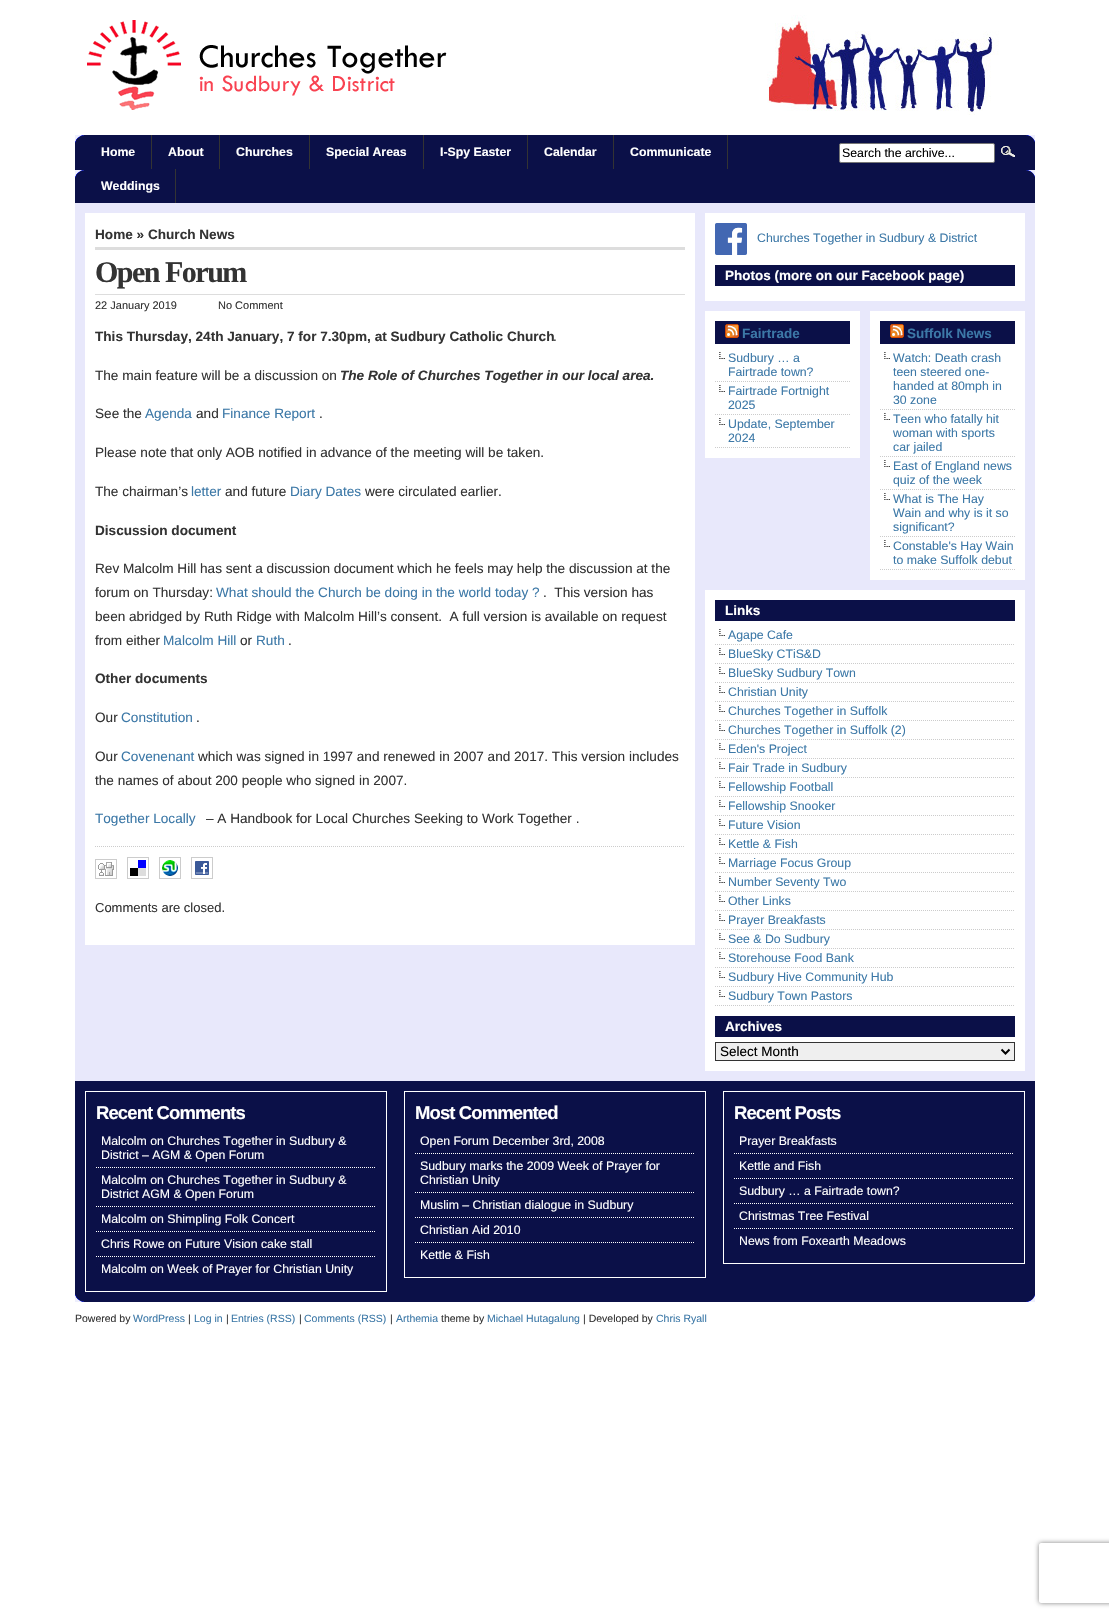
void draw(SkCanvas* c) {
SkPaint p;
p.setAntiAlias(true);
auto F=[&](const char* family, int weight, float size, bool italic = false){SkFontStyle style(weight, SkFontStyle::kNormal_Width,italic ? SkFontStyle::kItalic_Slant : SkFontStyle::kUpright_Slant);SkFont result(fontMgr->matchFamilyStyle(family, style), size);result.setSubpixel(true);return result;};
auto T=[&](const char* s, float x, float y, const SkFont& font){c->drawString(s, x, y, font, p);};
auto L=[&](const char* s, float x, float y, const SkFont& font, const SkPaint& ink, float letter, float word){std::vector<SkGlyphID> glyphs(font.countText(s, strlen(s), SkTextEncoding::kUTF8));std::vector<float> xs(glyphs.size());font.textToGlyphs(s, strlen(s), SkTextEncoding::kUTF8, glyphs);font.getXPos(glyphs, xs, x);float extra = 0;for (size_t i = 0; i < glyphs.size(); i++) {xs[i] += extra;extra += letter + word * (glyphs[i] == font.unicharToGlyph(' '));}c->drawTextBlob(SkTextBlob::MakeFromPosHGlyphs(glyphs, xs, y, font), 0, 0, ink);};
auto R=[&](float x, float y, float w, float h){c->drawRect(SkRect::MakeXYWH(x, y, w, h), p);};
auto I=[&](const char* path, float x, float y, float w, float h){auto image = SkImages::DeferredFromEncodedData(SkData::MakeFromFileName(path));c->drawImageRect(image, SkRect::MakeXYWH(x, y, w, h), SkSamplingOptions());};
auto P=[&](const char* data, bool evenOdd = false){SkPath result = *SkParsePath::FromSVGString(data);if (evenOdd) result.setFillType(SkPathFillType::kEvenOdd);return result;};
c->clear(0xffffffff);
I("1.png",87,20,360,90);
I("2.png",767,15,232,100);
I("3.png",75,135,960,68);
p.setColor(0xff333333);
R(151,135,1,34);
auto f1 = F("Liberation Sans",700,12.3);
p.setColor(0xffffffff);
T("Home",101,156,f1);
p.setColor(0xff333333);
R(219,135,1,34);
p.setColor(0xffffffff);
T("About",168,156,f1);
p.setColor(0xff333333);
R(309,135,1,34);
p.setColor(0xffffffff);
T("Churches",236,156,f1);
p.setColor(0xff333333);
R(423,135,1,34);
p.setColor(0xffffffff);
T("Special Areas",326,156,f1);
p.setColor(0xff333333);
R(527,135,1,34);
p.setColor(0xffffffff);
T("I-Spy Easter",440,156,f1);
p.setColor(0xff333333);
R(613,135,1,34);
p.setColor(0xffffffff);
T("Calendar",544,156,f1);
p.setColor(0xff333333);
R(727,135,1,34);
p.setColor(0xffffffff);
T("Communicate",630,156,f1);
p.setColor(0xff333333);
R(175,169,1,34);
p.setColor(0xffffffff);
T("Weddings",101,190,f1);
c->drawRoundRect(SkRect::MakeXYWH(839.5,143.5,155,19),1.5,1.5,p);
p.setStroke(true);
p.setStrokeWidth(1);
p.setColor(0xff767676);
c->drawRoundRect(SkRect::MakeXYWH(839.5,143.5,155,19),1.5,1.5,p);
auto f2 = F("Liberation Sans",400,12.3);
p.setStroke(false);
p.setColor(0xff000000);
T("Search the archive...",842,157,f2);
I("4.png",1001,146,14,11);
p.setColor(0xffe8e8fb);
R(75,203,960,878);
p.setColor(0xffffffff);
R(85,213,610,732);
auto f3 = F("Liberation Sans",700,13.6);
p.setColor(0xff333333);
T("Home » Church News",95,239,f3);
p.setColor(0xffdddddd);
R(95,247,590,3);
R(95,294,590,1);
auto f4 = F("Liberation Serif",700,30);
p.setColor(0xff333333);
L("Open Forum",95,282,f4,p,-1.5,0);
auto f5 = F("Liberation Sans",400,11);
T("22 January 2019",95,309,f5);
T("No Comment",218,309,f5);
p.setStroke(true);
p.setColor(0xffcccccc);
p.setPathEffect(SkDashPathEffect::Make({{1,1}}, 0));
c->drawPath(P("M95 846.5h590"),p);
p.setPathEffect(nullptr);
p.setStroke(false);
p.setColor(0xff333333);
T("This Thursday, 24th January, 7 for 7.30pm, at Sudbury Catholic Church",95,341,f3);
auto f6 = F("Liberation Sans",400,13.6);
T(".",553,341,f6);
T("The main feature will be a discussion on",95,380,f6);
auto f7 = F("Liberation Sans",700,13.6,true);
T("The Role of Churches Together in our local area.",340,380,f7);
T("See the",95,418,f6);
p.setColor(0xff3c78a7);
T("Agenda",145,418,f6);
p.setColor(0xff333333);
T("and",196,418,f6);
p.setColor(0xff3c78a7);
T("Finance Report",222,418,f6);
p.setColor(0xff333333);
T(".",319,418,f6);
T("Please note that only AOB notified in advance of the meeting will be taken.",95,457,f6);
T("The chairman’s",95,496,f6);
p.setColor(0xff3c78a7);
T("letter",191,496,f6);
p.setColor(0xff333333);
T("and future",225,496,f6);
p.setColor(0xff3c78a7);
T("Diary Dates",290,496,f6);
p.setColor(0xff333333);
T("were circulated earlier.",365,496,f6);
T("Discussion document",95,535,f3);
T("Rev Malcolm Hill has sent a discussion document which he feels may help the discussion at the",95,573,f6);
T("forum on Thursday:",95,597,f6);
p.setColor(0xff3c78a7);
T("What should the Church be doing in the world today ?",216,597,f6);
p.setColor(0xff333333);
T(".  This version has",543,597,f6);
T("been abridged by Ruth Ridge with Malcolm Hill’s consent.  A full version is available on request",95,621,f6);
T("from either",95,645,f6);
p.setColor(0xff3c78a7);
T("Malcolm Hill",163,645,f6);
p.setColor(0xff333333);
T("or",240,645,f6);
p.setColor(0xff3c78a7);
T("Ruth",256,645,f6);
p.setColor(0xff333333);
T(".",288,645,f6);
T("Other documents",95,683,f3);
T("Our",95,722,f6);
p.setColor(0xff3c78a7);
T("Constitution",121,722,f6);
p.setColor(0xff333333);
T(".",196,722,f6);
T("Our",95,761,f6);
p.setColor(0xff3c78a7);
T("Covenenant",121,761,f6);
p.setColor(0xff333333);
T("which was signed in 1997 and renewed in 2007 and 2017. This version includes",198,761,f6);
T("the names of about 200 people who signed in 2007.",95,785,f6);
p.setColor(0xff3c78a7);
T("Together Locally",95,823,f6);
p.setColor(0xff333333);
T("– A Handbook for Local Churches Seeking to Work Together .",206,823,f6);
p.setStroke(true);
p.setColor(0xffcccccc);
c->drawRect(SkRect::MakeXYWH(95.5,859.5,21,19),p);
c->drawRect(SkRect::MakeXYWH(127.5,857.5,21,21),p);
c->drawRect(SkRect::MakeXYWH(159.5,857.5,21,21),p);
c->drawRect(SkRect::MakeXYWH(191.5,857.5,21,21),p);
I("5.png",98,862,16,14);
I("6.png",130,860,16,16);
I("7.png",162,860,16,16);
I("8.png",195,861,14,14);
auto f8 = F("Liberation Sans",400,13);
p.setStroke(false);
p.setColor(0xff333333);
T("Comments are closed.",95,912,f8);
p.setColor(0xffffffff);
R(705,213,320,88);
I("9.png",715,223,32,32);
p.setColor(0xff3c78a7);
T("Churches Together in Sudbury & District",757,242,f2);
p.setColor(0xff0b1048);
R(715,265,300,21);
auto f9 = F("Liberation Sans",700,13.5);
p.setColor(0xffffffff);
T("Photos (more on our Facebook page)",725,280,f9);
R(705,311,155,147);
p.setColor(0xff0b1048);
R(715,321,135,23);
I("10.png",725,324,14,14);
p.setColor(0xff3c78a7);
T("Fairtrade",742,338,f9);
I("11.png",719,352,6,7);
p.setStroke(true);
p.setColor(0xffcccccc);
p.setPathEffect(SkDashPathEffect::Make({{1,1}}, 0));
c->drawPath(P("M715 381.5h135"),p);
p.setPathEffect(nullptr);
p.setStroke(false);
p.setColor(0xff3c78a7);
T("Sudbury … a",728,362,f2);
T("Fairtrade town?",728,376,f2);
I("11.png",719,385,6,7);
p.setStroke(true);
p.setColor(0xffcccccc);
p.setPathEffect(SkDashPathEffect::Make({{1,1}}, 0));
c->drawPath(P("M715 414.5h135"),p);
p.setPathEffect(nullptr);
p.setStroke(false);
p.setColor(0xff3c78a7);
T("Fairtrade Fortnight",728,395,f2);
T("2025",728,409,f2);
I("11.png",719,418,6,7);
p.setStroke(true);
p.setColor(0xffcccccc);
p.setPathEffect(SkDashPathEffect::Make({{1,1}}, 0));
c->drawPath(P("M715 447.5h135"),p);
p.setPathEffect(nullptr);
p.setStroke(false);
p.setColor(0xff3c78a7);
T("Update, September",728,428,f2);
T("2024",728,442,f2);
p.setColor(0xffffffff);
R(870,311,155,269);
p.setColor(0xff0b1048);
R(880,321,135,23);
I("10.png",890,324,14,14);
p.setColor(0xff3c78a7);
T("Suffolk News",907,338,f9);
I("12.png",884,352,6,7);
p.setStroke(true);
p.setColor(0xffcccccc);
p.setPathEffect(SkDashPathEffect::Make({{1,1}}, 0));
c->drawPath(P("M880 409.5h135"),p);
p.setPathEffect(nullptr);
p.setStroke(false);
p.setColor(0xff3c78a7);
T("Watch: Death crash",893,362,f2);
T("teen steered one-",893,376,f2);
T("handed at 80mph in",893,390,f2);
T("30 zone",893,404,f2);
I("12.png",884,413,6,7);
p.setStroke(true);
p.setColor(0xffcccccc);
p.setPathEffect(SkDashPathEffect::Make({{1,1}}, 0));
c->drawPath(P("M880 456.5h135"),p);
p.setPathEffect(nullptr);
p.setStroke(false);
p.setColor(0xff3c78a7);
T("Teen who fatally hit",893,423,f2);
T("woman with sports",893,437,f2);
T("car jailed",893,451,f2);
I("12.png",884,460,6,7);
p.setStroke(true);
p.setColor(0xffcccccc);
p.setPathEffect(SkDashPathEffect::Make({{1,1}}, 0));
c->drawPath(P("M880 489.5h135"),p);
p.setPathEffect(nullptr);
p.setStroke(false);
p.setColor(0xff3c78a7);
T("East of England news",893,470,f2);
T("quiz of the week",893,484,f2);
I("12.png",884,493,6,7);
p.setStroke(true);
p.setColor(0xffcccccc);
p.setPathEffect(SkDashPathEffect::Make({{1,1}}, 0));
c->drawPath(P("M880 536.5h135"),p);
p.setPathEffect(nullptr);
p.setStroke(false);
p.setColor(0xff3c78a7);
T("What is The Hay",893,503,f2);
T("Wain and why is it so",893,517,f2);
T("significant?",893,531,f2);
I("12.png",884,540,6,7);
p.setStroke(true);
p.setColor(0xffcccccc);
p.setPathEffect(SkDashPathEffect::Make({{1,1}}, 0));
c->drawPath(P("M880 569.5h135"),p);
p.setPathEffect(nullptr);
p.setStroke(false);
p.setColor(0xff3c78a7);
T("Constable's Hay Wain",893,550,f2);
T("to make Suffolk debut",893,564,f2);
p.setColor(0xffffffff);
R(705,590,320,481);
p.setColor(0xff0b1048);
R(715,600,300,21);
p.setColor(0xffffffff);
T("Links",725,615,f9);
I("11.png",719,629,6,7);
p.setStroke(true);
p.setColor(0xffcccccc);
p.setPathEffect(SkDashPathEffect::Make({{1,1}}, 0));
c->drawPath(P("M715 644.5h300"),p);
p.setPathEffect(nullptr);
p.setStroke(false);
p.setColor(0xff3c78a7);
T("Agape Cafe",728,639,f2);
I("11.png",719,648,6,7);
p.setStroke(true);
p.setColor(0xffcccccc);
p.setPathEffect(SkDashPathEffect::Make({{1,1}}, 0));
c->drawPath(P("M715 663.5h300"),p);
p.setPathEffect(nullptr);
p.setStroke(false);
p.setColor(0xff3c78a7);
T("BlueSky CTiS&D",728,658,f2);
I("11.png",719,667,6,7);
p.setStroke(true);
p.setColor(0xffcccccc);
p.setPathEffect(SkDashPathEffect::Make({{1,1}}, 0));
c->drawPath(P("M715 682.5h300"),p);
p.setPathEffect(nullptr);
p.setStroke(false);
p.setColor(0xff3c78a7);
T("BlueSky Sudbury Town",728,677,f2);
I("11.png",719,686,6,7);
p.setStroke(true);
p.setColor(0xffcccccc);
p.setPathEffect(SkDashPathEffect::Make({{1,1}}, 0));
c->drawPath(P("M715 701.5h300"),p);
p.setPathEffect(nullptr);
p.setStroke(false);
p.setColor(0xff3c78a7);
T("Christian Unity",728,696,f2);
I("11.png",719,705,6,7);
p.setStroke(true);
p.setColor(0xffcccccc);
p.setPathEffect(SkDashPathEffect::Make({{1,1}}, 0));
c->drawPath(P("M715 720.5h300"),p);
p.setPathEffect(nullptr);
p.setStroke(false);
p.setColor(0xff3c78a7);
T("Churches Together in Suffolk",728,715,f2);
I("11.png",719,724,6,7);
p.setStroke(true);
p.setColor(0xffcccccc);
p.setPathEffect(SkDashPathEffect::Make({{1,1}}, 0));
c->drawPath(P("M715 739.5h300"),p);
p.setPathEffect(nullptr);
p.setStroke(false);
p.setColor(0xff3c78a7);
T("Churches Together in Suffolk (2)",728,734,f2);
I("11.png",719,743,6,7);
p.setStroke(true);
p.setColor(0xffcccccc);
p.setPathEffect(SkDashPathEffect::Make({{1,1}}, 0));
c->drawPath(P("M715 758.5h300"),p);
p.setPathEffect(nullptr);
p.setStroke(false);
p.setColor(0xff3c78a7);
T("Eden's Project",728,753,f2);
I("11.png",719,762,6,7);
p.setStroke(true);
p.setColor(0xffcccccc);
p.setPathEffect(SkDashPathEffect::Make({{1,1}}, 0));
c->drawPath(P("M715 777.5h300"),p);
p.setPathEffect(nullptr);
p.setStroke(false);
p.setColor(0xff3c78a7);
T("Fair Trade in Sudbury",728,772,f2);
I("11.png",719,781,6,7);
p.setStroke(true);
p.setColor(0xffcccccc);
p.setPathEffect(SkDashPathEffect::Make({{1,1}}, 0));
c->drawPath(P("M715 796.5h300"),p);
p.setPathEffect(nullptr);
p.setStroke(false);
p.setColor(0xff3c78a7);
T("Fellowship Football",728,791,f2);
I("11.png",719,800,6,7);
p.setStroke(true);
p.setColor(0xffcccccc);
p.setPathEffect(SkDashPathEffect::Make({{1,1}}, 0));
c->drawPath(P("M715 815.5h300"),p);
p.setPathEffect(nullptr);
p.setStroke(false);
p.setColor(0xff3c78a7);
T("Fellowship Snooker",728,810,f2);
I("11.png",719,819,6,7);
p.setStroke(true);
p.setColor(0xffcccccc);
p.setPathEffect(SkDashPathEffect::Make({{1,1}}, 0));
c->drawPath(P("M715 834.5h300"),p);
p.setPathEffect(nullptr);
p.setStroke(false);
p.setColor(0xff3c78a7);
T("Future Vision",728,829,f2);
I("11.png",719,838,6,7);
p.setStroke(true);
p.setColor(0xffcccccc);
p.setPathEffect(SkDashPathEffect::Make({{1,1}}, 0));
c->drawPath(P("M715 853.5h300"),p);
p.setPathEffect(nullptr);
p.setStroke(false);
p.setColor(0xff3c78a7);
T("Kettle & Fish",728,848,f2);
I("11.png",719,857,6,7);
p.setStroke(true);
p.setColor(0xffcccccc);
p.setPathEffect(SkDashPathEffect::Make({{1,1}}, 0));
c->drawPath(P("M715 872.5h300"),p);
p.setPathEffect(nullptr);
p.setStroke(false);
p.setColor(0xff3c78a7);
T("Marriage Focus Group",728,867,f2);
I("11.png",719,876,6,7);
p.setStroke(true);
p.setColor(0xffcccccc);
p.setPathEffect(SkDashPathEffect::Make({{1,1}}, 0));
c->drawPath(P("M715 891.5h300"),p);
p.setPathEffect(nullptr);
p.setStroke(false);
p.setColor(0xff3c78a7);
T("Number Seventy Two",728,886,f2);
I("11.png",719,895,6,7);
p.setStroke(true);
p.setColor(0xffcccccc);
p.setPathEffect(SkDashPathEffect::Make({{1,1}}, 0));
c->drawPath(P("M715 910.5h300"),p);
p.setPathEffect(nullptr);
p.setStroke(false);
p.setColor(0xff3c78a7);
T("Other Links",728,905,f2);
I("11.png",719,914,6,7);
p.setStroke(true);
p.setColor(0xffcccccc);
p.setPathEffect(SkDashPathEffect::Make({{1,1}}, 0));
c->drawPath(P("M715 929.5h300"),p);
p.setPathEffect(nullptr);
p.setStroke(false);
p.setColor(0xff3c78a7);
T("Prayer Breakfasts",728,924,f2);
I("11.png",719,933,6,7);
p.setStroke(true);
p.setColor(0xffcccccc);
p.setPathEffect(SkDashPathEffect::Make({{1,1}}, 0));
c->drawPath(P("M715 948.5h300"),p);
p.setPathEffect(nullptr);
p.setStroke(false);
p.setColor(0xff3c78a7);
T("See & Do Sudbury",728,943,f2);
I("11.png",719,952,6,7);
p.setStroke(true);
p.setColor(0xffcccccc);
p.setPathEffect(SkDashPathEffect::Make({{1,1}}, 0));
c->drawPath(P("M715 967.5h300"),p);
p.setPathEffect(nullptr);
p.setStroke(false);
p.setColor(0xff3c78a7);
T("Storehouse Food Bank",728,962,f2);
I("11.png",719,971,6,7);
p.setStroke(true);
p.setColor(0xffcccccc);
p.setPathEffect(SkDashPathEffect::Make({{1,1}}, 0));
c->drawPath(P("M715 986.5h300"),p);
p.setPathEffect(nullptr);
p.setStroke(false);
p.setColor(0xff3c78a7);
T("Sudbury Hive Community Hub",728,981,f2);
I("11.png",719,990,6,7);
p.setStroke(true);
p.setColor(0xffcccccc);
p.setPathEffect(SkDashPathEffect::Make({{1,1}}, 0));
c->drawPath(P("M715 1005.5h300"),p);
p.setPathEffect(nullptr);
p.setStroke(false);
p.setColor(0xff3c78a7);
T("Sudbury Town Pastors",728,1000,f2);
p.setColor(0xff0b1048);
R(715,1016,300,21);
p.setColor(0xffffffff);
T("Archives",725,1031,f9);
p.setColor(0xffefefef);
c->drawRect(SkRect::MakeXYWH(715.5,1042.5,299,18),p);
p.setStroke(true);
p.setColor(0xff333333);
c->drawRect(SkRect::MakeXYWH(715.5,1042.5,299,18),p);
p.setStrokeWidth(2);
p.setColor(0xff000000);
c->drawPath(P("M1001.5 1049.5l4 4l4-4"),p);
auto f10 = F("Liberation Sans",400,13.5);
p.setStroke(false);
T("Select Month",720,1056,f10);
p.setColor(0xff0b1048);
R(75,1081,960,213);
I("13.png",75,1294,960,8);
p.setStroke(true);
p.setStrokeWidth(1);
p.setColor(0xffffffff);
c->drawRect(SkRect::MakeXYWH(85.5,1091.5,301,200),p);
auto f11 = F("Liberation Sans",700,18.5);
p.setStroke(false);
L("Recent Comments",96,1119,f11,p,-.9,0);
T("Malcolm on Churches Together in Sudbury &",101,1145,f2);
T("District – AGM & Open Forum",101,1159,f2);
p.setStroke(true);
p.setPathEffect(SkDashPathEffect::Make({{1,1}}, 0));
c->drawPath(P("M96 1167.5h280"),p);
p.setPathEffect(nullptr);
p.setStroke(false);
T("Malcolm on Churches Together in Sudbury &",101,1184,f2);
T("District AGM & Open Forum",101,1198,f2);
p.setStroke(true);
p.setPathEffect(SkDashPathEffect::Make({{1,1}}, 0));
c->drawPath(P("M96 1206.5h280"),p);
p.setPathEffect(nullptr);
p.setStroke(false);
T("Malcolm on Shimpling Folk Concert",101,1223,f2);
p.setStroke(true);
p.setPathEffect(SkDashPathEffect::Make({{1,1}}, 0));
c->drawPath(P("M96 1231.5h280"),p);
p.setPathEffect(nullptr);
p.setStroke(false);
T("Chris Rowe on Future Vision cake stall",101,1248,f2);
p.setStroke(true);
p.setPathEffect(SkDashPathEffect::Make({{1,1}}, 0));
c->drawPath(P("M96 1256.5h280"),p);
p.setPathEffect(nullptr);
p.setStroke(false);
T("Malcolm on Week of Prayer for Christian Unity",101,1273,f2);
p.setStroke(true);
c->drawRect(SkRect::MakeXYWH(404.5,1091.5,301,186),p);
p.setStroke(false);
L("Most Commented",415,1119,f11,p,-.9,0);
T("Open Forum December 3rd, 2008",420,1145,f2);
p.setStroke(true);
p.setPathEffect(SkDashPathEffect::Make({{1,1}}, 0));
c->drawPath(P("M415 1153.5h280"),p);
p.setPathEffect(nullptr);
p.setStroke(false);
T("Sudbury marks the 2009 Week of Prayer for",420,1170,f2);
T("Christian Unity",420,1184,f2);
p.setStroke(true);
p.setPathEffect(SkDashPathEffect::Make({{1,1}}, 0));
c->drawPath(P("M415 1192.5h280"),p);
p.setPathEffect(nullptr);
p.setStroke(false);
T("Muslim – Christian dialogue in Sudbury",420,1209,f2);
p.setStroke(true);
p.setPathEffect(SkDashPathEffect::Make({{1,1}}, 0));
c->drawPath(P("M415 1217.5h280"),p);
p.setPathEffect(nullptr);
p.setStroke(false);
T("Christian Aid 2010",420,1234,f2);
p.setStroke(true);
p.setPathEffect(SkDashPathEffect::Make({{1,1}}, 0));
c->drawPath(P("M415 1242.5h280"),p);
p.setPathEffect(nullptr);
p.setStroke(false);
T("Kettle & Fish",420,1259,f2);
p.setStroke(true);
c->drawRect(SkRect::MakeXYWH(723.5,1091.5,301,172),p);
p.setStroke(false);
L("Recent Posts",734,1119,f11,p,-.9,0);
T("Prayer Breakfasts",739,1145,f2);
p.setStroke(true);
p.setPathEffect(SkDashPathEffect::Make({{1,1}}, 0));
c->drawPath(P("M734 1153.5h280"),p);
p.setPathEffect(nullptr);
p.setStroke(false);
T("Kettle and Fish",739,1170,f2);
p.setStroke(true);
p.setPathEffect(SkDashPathEffect::Make({{1,1}}, 0));
c->drawPath(P("M734 1178.5h280"),p);
p.setPathEffect(nullptr);
p.setStroke(false);
T("Sudbury … a Fairtrade town?",739,1195,f2);
p.setStroke(true);
p.setPathEffect(SkDashPathEffect::Make({{1,1}}, 0));
c->drawPath(P("M734 1203.5h280"),p);
p.setPathEffect(nullptr);
p.setStroke(false);
T("Christmas Tree Festival",739,1220,f2);
p.setStroke(true);
p.setPathEffect(SkDashPathEffect::Make({{1,1}}, 0));
c->drawPath(P("M734 1228.5h280"),p);
p.setPathEffect(nullptr);
p.setStroke(false);
T("News from Foxearth Meadows",739,1245,f2);
auto f12 = F("Liberation Sans",400,10.5);
p.setColor(0xff333333);
T("Powered by",75,1322,f12);
p.setColor(0xff3c78a7);
T("WordPress",133,1322,f12);
p.setColor(0xff333333);
T("|",188,1322,f12);
p.setColor(0xff3c78a7);
T("Log in",194,1322,f12);
p.setColor(0xff333333);
T("|",226,1322,f12);
p.setColor(0xff3c78a7);
T("Entries (RSS)",231,1322,f12);
p.setColor(0xff333333);
T("|",299,1322,f12);
p.setColor(0xff3c78a7);
T("Comments (RSS)",304,1322,f12);
p.setColor(0xff333333);
T("|",390,1322,f12);
p.setColor(0xff3c78a7);
T("Arthemia",396,1322,f12);
p.setColor(0xff333333);
T("theme by",441,1322,f12);
p.setColor(0xff3c78a7);
T("Michael Hutagalung",487,1322,f12);
p.setColor(0xff333333);
T("| Developed by",583,1322,f12);
p.setColor(0xff3c78a7);
T("Chris Ryall",656,1322,f12);
c->save();
c->clipPath(P("M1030 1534h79v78h-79zm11 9h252c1 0 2 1 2 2v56c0 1-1 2-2 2h-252c-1 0-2-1-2-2v-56c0-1 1-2 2-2z",true),true);
p.setColor(0xff808080);
p.setMaskFilter(SkMaskFilter::MakeBlur(kNormal_SkBlurStyle, 2.5));
c->drawRoundRect(SkRect::MakeXYWH(1039,1543,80,60),2,2,p);
p.setMaskFilter(nullptr);
c->restore();
}
